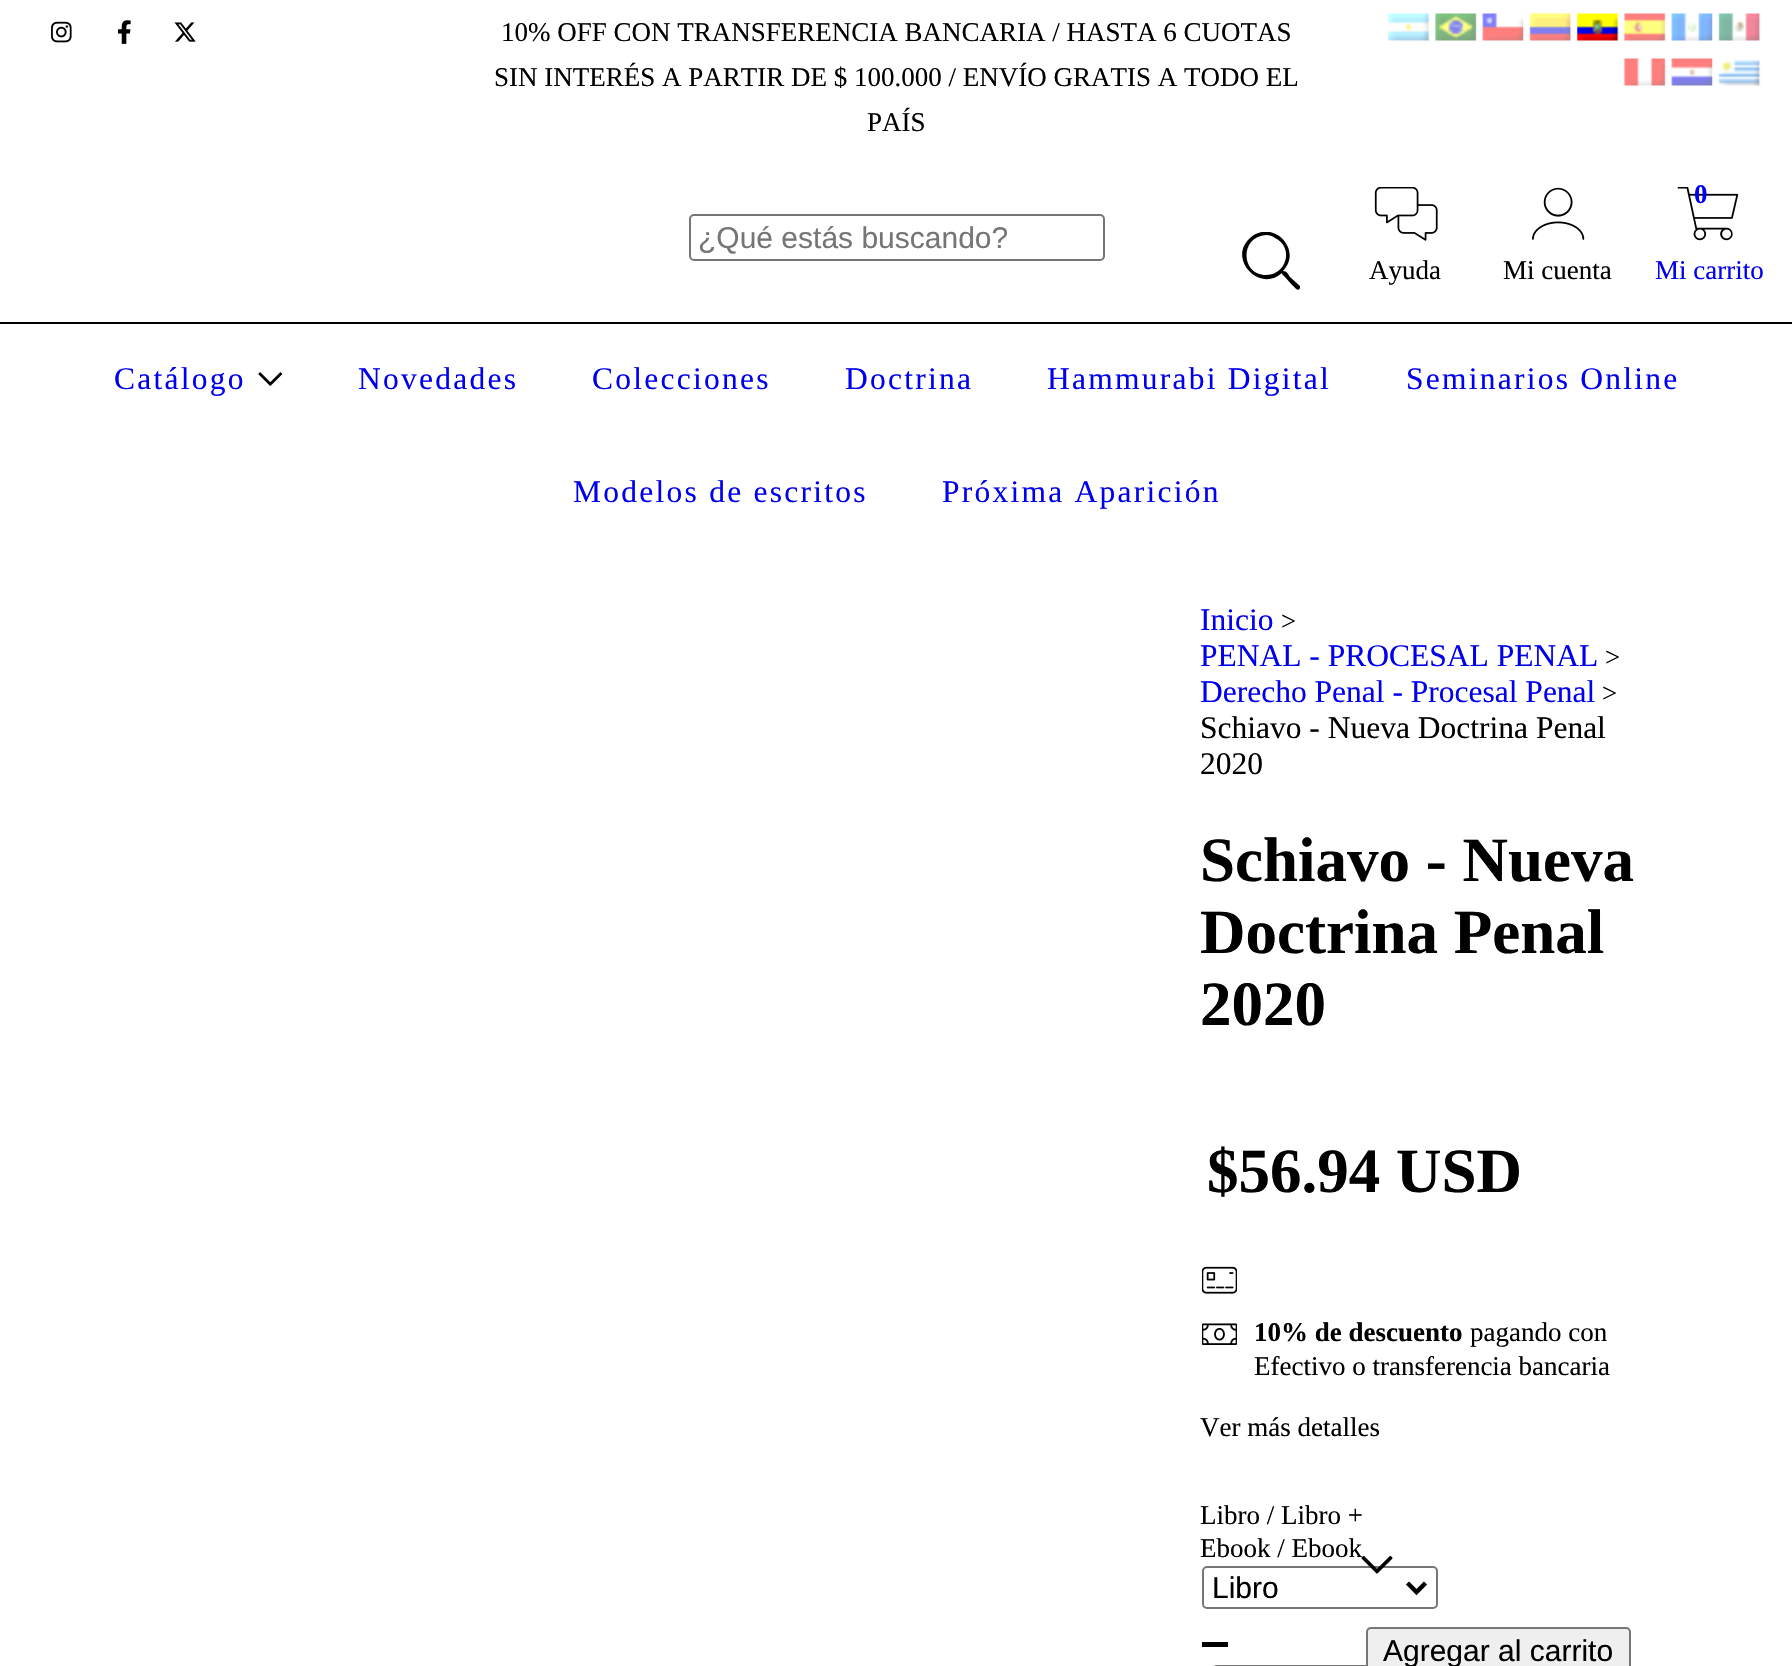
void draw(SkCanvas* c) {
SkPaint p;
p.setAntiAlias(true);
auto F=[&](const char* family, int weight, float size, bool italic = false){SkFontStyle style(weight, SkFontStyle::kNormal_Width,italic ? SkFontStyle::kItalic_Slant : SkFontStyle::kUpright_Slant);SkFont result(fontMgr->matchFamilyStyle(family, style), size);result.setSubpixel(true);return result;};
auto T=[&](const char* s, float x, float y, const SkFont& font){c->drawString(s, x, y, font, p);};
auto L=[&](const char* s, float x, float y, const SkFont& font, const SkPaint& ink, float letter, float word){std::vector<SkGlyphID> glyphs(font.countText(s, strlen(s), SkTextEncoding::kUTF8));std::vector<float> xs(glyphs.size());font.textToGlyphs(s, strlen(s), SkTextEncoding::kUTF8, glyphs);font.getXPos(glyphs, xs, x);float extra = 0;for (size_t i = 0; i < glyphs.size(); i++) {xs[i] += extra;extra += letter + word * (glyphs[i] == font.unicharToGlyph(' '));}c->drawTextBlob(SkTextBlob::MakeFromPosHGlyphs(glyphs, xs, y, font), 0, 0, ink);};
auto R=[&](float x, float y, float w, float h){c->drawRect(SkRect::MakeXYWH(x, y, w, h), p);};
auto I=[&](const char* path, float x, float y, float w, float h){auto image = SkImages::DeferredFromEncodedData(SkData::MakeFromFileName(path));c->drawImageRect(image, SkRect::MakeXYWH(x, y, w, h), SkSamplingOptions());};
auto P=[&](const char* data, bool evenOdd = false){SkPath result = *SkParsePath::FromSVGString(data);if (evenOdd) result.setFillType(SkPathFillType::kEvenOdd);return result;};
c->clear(0xffffffff);
I("1.png",51,21,21,22);
I("2.png",118,20,13,24);
I("3.png",174,22,22,20);
auto f1 = F("Liberation Serif",400,27);
p.setColor(0xff000000);
T("10% OFF CON TRANSFERENCIA BANCARIA / HASTA 6 CUOTAS",501,41,f1);
T("SIN INTERÉS A PARTIR DE $ 100.000 / ENVÍO GRATIS A TODO EL",494,86,f1);
T("PAÍS",867,131,f1);
I("4.png",1388,13,42,28);
I("5.png",1435,13,42,28);
I("6.png",1482,13,42,28);
I("7.png",1529,13,43,28);
I("8.png",1577,13,42,28);
I("9.png",1624,13,42,28);
I("10.png",1671,13,42,28);
I("11.png",1718,13,43,28);
I("12.png",1624,58,42,28);
I("13.png",1671,58,42,28);
I("14.png",1718,59,43,27);
p.setStroke(true);
p.setStrokeWidth(2);
p.setColor(0xff767676);
c->drawRoundRect(SkRect::MakeXYWH(690,215,414,45),4,4,p);
auto f2 = F("Liberation Sans",400,30);
p.setStroke(false);
p.setColor(0xff757575);
T("¿Qué estás buscando?",698,248,f2);
c->save();
c->clipRect(SkRect::MakeXYWH(1242,232,60,60));
p.setColor(0xff000000);
c->drawPath(P("M1300 286l-10-9c-2-3-3-6-7-6c21-22-12-54-34-32c-21 21 11 54 33 34c0 2 1 2 3 4l7 8c2 1 6 8 8 3zm-34-11c-25 0-27-38 0-40c3 0 7 1 9 3c19 9 12 37-9 37z"),p);
c->restore();
I("15.png",1374,187,64,54);
T("Ayuda",1369,279,f1);
I("16.png",1532,187,53,53);
T("Mi cuenta",1503,279,f1);
I("17.png",1677,187,62,54);
auto f3 = F("Liberation Serif",700,27);
p.setColor(0xff0000ee);
T("0",1694,203,f3);
T("Mi carrito",1655,279,f1);
p.setColor(0xff000000);
R(0,322,1792,2);
auto f4 = F("Liberation Serif",400,31.5);
p.setColor(0xff0000ee);
L("Catálogo",114,389,f4,p,2.25,0);
I("18.png",258,372,25,14);
L("Novedades",358,389,f4,p,2.25,0);
L("Colecciones",592,389,f4,p,2.25,0);
L("Doctrina",845,389,f4,p,2.25,0);
L("Hammurabi Digital",1047,389,f4,p,2.25,0);
L("Seminarios Online",1406,389,f4,p,2.25,0);
L("Modelos de escritos",573,502,f4,p,2.25,0);
L("Próxima Aparición",942,502,f4,p,2.25,0);
T("Inicio",1200,630,f4);
p.setColor(0xff000000);
T(">",1281,630,f1);
p.setColor(0xff0000ee);
T("PENAL - PROCESAL PENAL",1200,666,f4);
p.setColor(0xff000000);
T(">",1605,666,f1);
p.setColor(0xff0000ee);
T("Derecho Penal - Procesal Penal",1200,702,f4);
p.setColor(0xff000000);
T(">",1602,702,f1);
T("Schiavo - Nueva Doctrina Penal",1200,738,f4);
T("2020",1200,774,f4);
auto f5 = F("Liberation Serif",700,63);
T("Schiavo - Nueva",1200,881,f5);
T("Doctrina Penal",1200,953,f5);
T("2020",1200,1025,f5);
T("$56.94 USD",1207,1192,f5);
I("19.png",1202,1266,35,28);
I("20.png",1202,1323,35,22);
T("10% de descuento",1254,1341,f3);
T("pagando con",1470,1341,f1);
T("Efectivo o transferencia bancaria",1254,1375,f1);
T("Ver más detalles",1200,1436,f1);
T("Libro / Libro +",1200,1524,f1);
T("Ebook / Ebook",1200,1557,f1);
p.setStroke(true);
p.setColor(0xff767676);
c->drawRoundRect(SkRect::MakeXYWH(1203,1567,234,41),4,4,p);
I("21.png",1361,1555,32,19);
p.setStrokeWidth(4.5);
p.setColor(0xff000000);
c->drawPath(P("M1407.5 1583l9 9l9-9"),p);
p.setStroke(false);
T("Libro",1212,1598,f2);
p.setStroke(true);
p.setStrokeWidth(2);
p.setColor(0xff767676);
c->drawRoundRect(SkRect::MakeXYWH(1214,1666,414,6),4,4,p);
p.setStroke(false);
p.setColor(0xffefefef);
c->drawRoundRect(SkRect::MakeXYWH(1367,1628,263,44),4,4,p);
p.setStroke(true);
p.setColor(0xff767676);
c->drawRoundRect(SkRect::MakeXYWH(1367,1628,263,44),4,4,p);
p.setStroke(false);
p.setColor(0xff000000);
T("Agregar al carrito",1383,1661,f2);
R(1202,1642,26,5);
}
